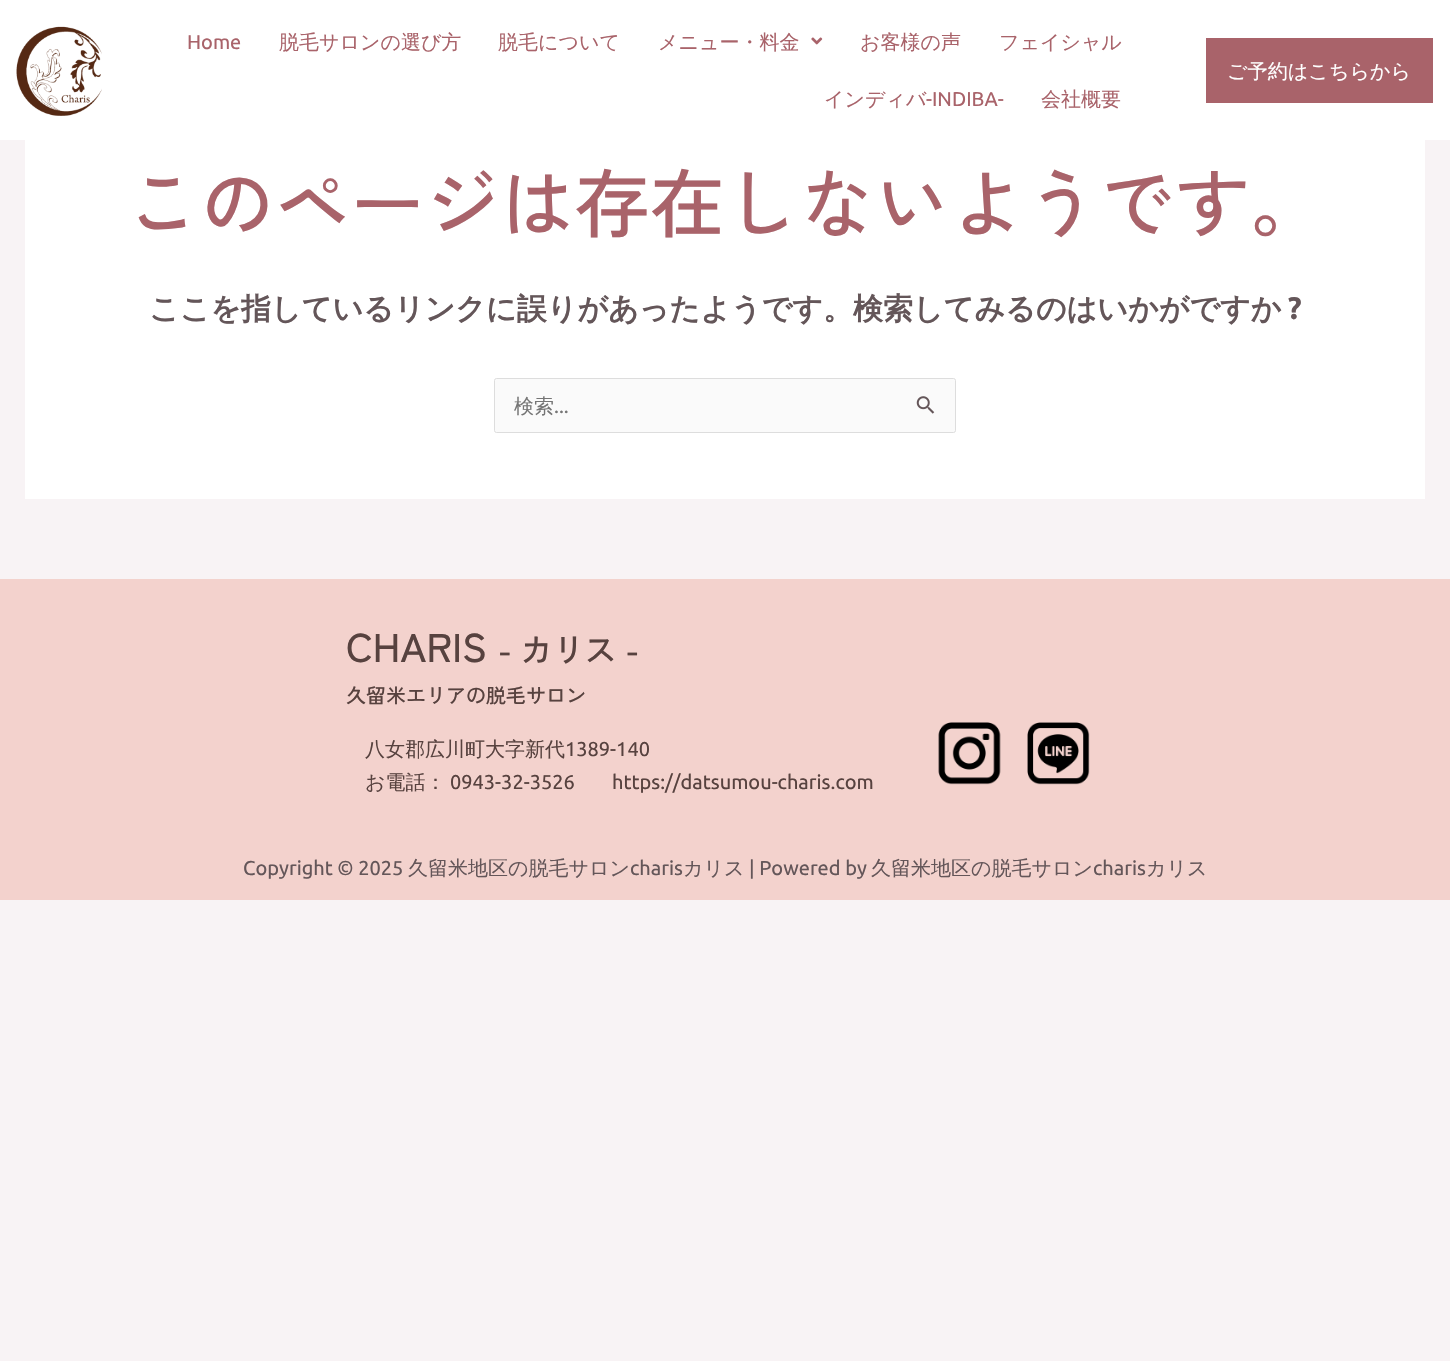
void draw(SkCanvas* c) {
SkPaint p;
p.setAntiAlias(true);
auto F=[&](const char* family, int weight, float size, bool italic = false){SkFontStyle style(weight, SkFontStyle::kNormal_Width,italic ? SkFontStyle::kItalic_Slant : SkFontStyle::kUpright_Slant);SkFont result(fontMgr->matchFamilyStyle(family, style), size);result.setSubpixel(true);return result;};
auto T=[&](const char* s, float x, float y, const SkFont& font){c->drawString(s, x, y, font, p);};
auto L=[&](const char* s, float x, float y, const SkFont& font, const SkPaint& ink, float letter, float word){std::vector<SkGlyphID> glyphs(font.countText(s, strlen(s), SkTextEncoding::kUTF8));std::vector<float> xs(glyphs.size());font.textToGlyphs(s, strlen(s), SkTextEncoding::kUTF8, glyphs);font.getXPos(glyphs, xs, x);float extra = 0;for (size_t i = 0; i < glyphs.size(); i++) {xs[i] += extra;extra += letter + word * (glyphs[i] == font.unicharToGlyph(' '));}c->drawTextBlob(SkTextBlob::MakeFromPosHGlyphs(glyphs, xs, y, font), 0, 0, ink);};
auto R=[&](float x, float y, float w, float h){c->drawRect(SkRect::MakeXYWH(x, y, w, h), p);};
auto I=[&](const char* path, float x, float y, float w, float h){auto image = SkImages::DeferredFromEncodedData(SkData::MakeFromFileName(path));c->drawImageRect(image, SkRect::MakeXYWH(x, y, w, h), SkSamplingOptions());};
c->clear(0xfff8f3f5);
p.setColor(0xffffffff);
R(0,0,1450,140);
I("1.png",16,26,86,90);
auto f1 = F("Ubuntu",400,20);
p.setColor(0xffa9636a);
T("Home",187,49,f1);
auto f2 = F("WenQuanYi Zen Hei",500,20);
T("脱毛サロンの選び方",279,49,f2);
T("脱毛について",498,49,f2);
T("メニュー・料金",658,49,f2);
I("2.png",811,37,12,8);
T("お客様の声",860,49,f2);
T("フェイシャル",999,49,f2);
T("インディバ",824,106,f2);
T("-INDIBA-",926,106,f1);
T("会社概要",1041,106,f2);
R(1206,38,227,65);
p.setColor(0xffffffff);
L("ご予約はこちらから",1227,78,f2,p,.1,0);
R(25,140,1400,359);
auto f3 = F("Zen Kaku Gothic New",500,75);
p.setColor(0xffa9636a);
T("このページは存在しないようです。",125,232,f3);
auto f4 = F("WenQuanYi Zen Hei",700,30);
p.setColor(0xff645659);
T("ここを指しているリンクに誤りがあったようです。検索してみるのはいかがですか",149,319,f4);
auto f5 = F("Ubuntu",700,30);
T("?",1288,319,f5);
p.setColor(0xfffafafa);
c->drawRoundRect(SkRect::MakeXYWH(494.5,378.5,461,54),2,2,p);
p.setStroke(true);
p.setStrokeWidth(1);
p.setColor(0xffdddddd);
c->drawRoundRect(SkRect::MakeXYWH(494.5,378.5,461,54),2,2,p);
p.setStroke(false);
p.setColor(0xff757575);
T("検索",514,413,f2);
T("...",554,413,f1);
I("3.png",916,396,19,18);
p.setColor(0xfff3d2cd);
R(0,579,1450,321);
auto f6 = F("Zen Kaku Gothic Antique",500,40);
p.setColor(0xff57423f);
T("CHARIS",346,662,f6);
auto f7 = F("Zen Kaku Gothic Antique",500,32);
T("- カリス -",498,662,f7);
auto f8 = F("Zen Kaku Gothic Antique",500,20);
T("久留米エリアの脱毛サロン",346,703,f8);
T("八女郡広川町大字新代",365,756,f2);
T("1389-140",565,756,f1);
T("お電話：",365,789,f2);
T("0943-32-3526",450,789,f1);
T("https://datsumou-charis.com",612,789,f1);
I("4.png",938,722,63,63);
I("5.png",1027,722,63,63);
p.setColor(0xff645659);
T("Copyright © 2025",243,875,f1);
T("久留米地区の脱毛サロン",408,875,f2);
T("charis",630,875,f1);
T("カリス",683,875,f2);
T("| Powered by",749,875,f1);
T("久留米地区の脱毛サロン",871,875,f2);
T("charis",1093,875,f1);
T("カリス",1146,875,f2);
}
